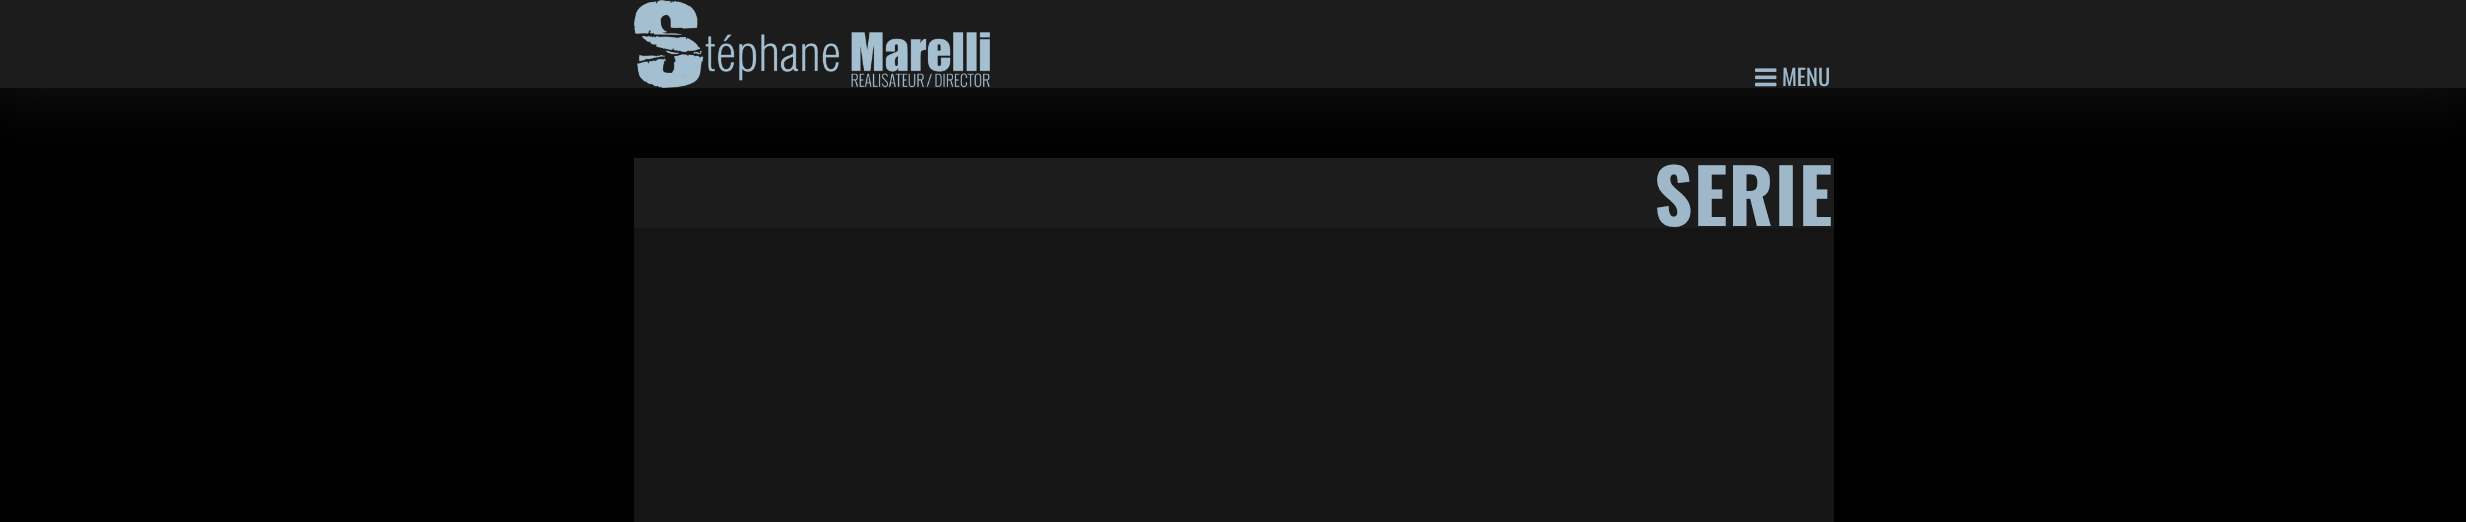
void draw(SkCanvas* c) {
SkPaint p;
p.setAntiAlias(true);
auto F=[&](const char* family, int weight, float size, bool italic = false){SkFontStyle style(weight, SkFontStyle::kNormal_Width,italic ? SkFontStyle::kItalic_Slant : SkFontStyle::kUpright_Slant);SkFont result(fontMgr->matchFamilyStyle(family, style), size);result.setSubpixel(true);return result;};
auto T=[&](const char* s, float x, float y, const SkFont& font){c->drawString(s, x, y, font, p);};
auto L=[&](const char* s, float x, float y, const SkFont& font, const SkPaint& ink, float letter, float word){std::vector<SkGlyphID> glyphs(font.countText(s, strlen(s), SkTextEncoding::kUTF8));std::vector<float> xs(glyphs.size());font.textToGlyphs(s, strlen(s), SkTextEncoding::kUTF8, glyphs);font.getXPos(glyphs, xs, x);float extra = 0;for (size_t i = 0; i < glyphs.size(); i++) {xs[i] += extra;extra += letter + word * (glyphs[i] == font.unicharToGlyph(' '));}c->drawTextBlob(SkTextBlob::MakeFromPosHGlyphs(glyphs, xs, y, font), 0, 0, ink);};
auto R=[&](float x, float y, float w, float h){c->drawRect(SkRect::MakeXYWH(x, y, w, h), p);};
auto I=[&](const char* path, float x, float y, float w, float h){auto image = SkImages::DeferredFromEncodedData(SkData::MakeFromFileName(path));c->drawImageRect(image, SkRect::MakeXYWH(x, y, w, h), SkSamplingOptions());};
c->clear(0xff000000);
p.setColor(0xff1c1c1c);
R(634,158,1200,70);
p.setColor(0xff111111);
p.setMaskFilter(SkMaskFilter::MakeBlur(kNormal_SkBlurStyle, 28));
c->drawRect(SkRect::MakeXYWH(-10,-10,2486,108),p);
p.setMaskFilter(nullptr);
p.setColor(0xff1c1c1c);
R(0,0,2466,88);
I("1.png",634,0,356,88);
I("2.png",1755,68,22,19);
auto f1 = F("Oswald",400,22.5);
p.setColor(0xff9eb8ca);
T("MENU",1782,86,f1);
auto f2 = F("Oswald",700,75);
L("SERIE",1654,226,f2,p,1.25,0);
p.setColor(0xff151515);
R(634,228,1200,294);
}
